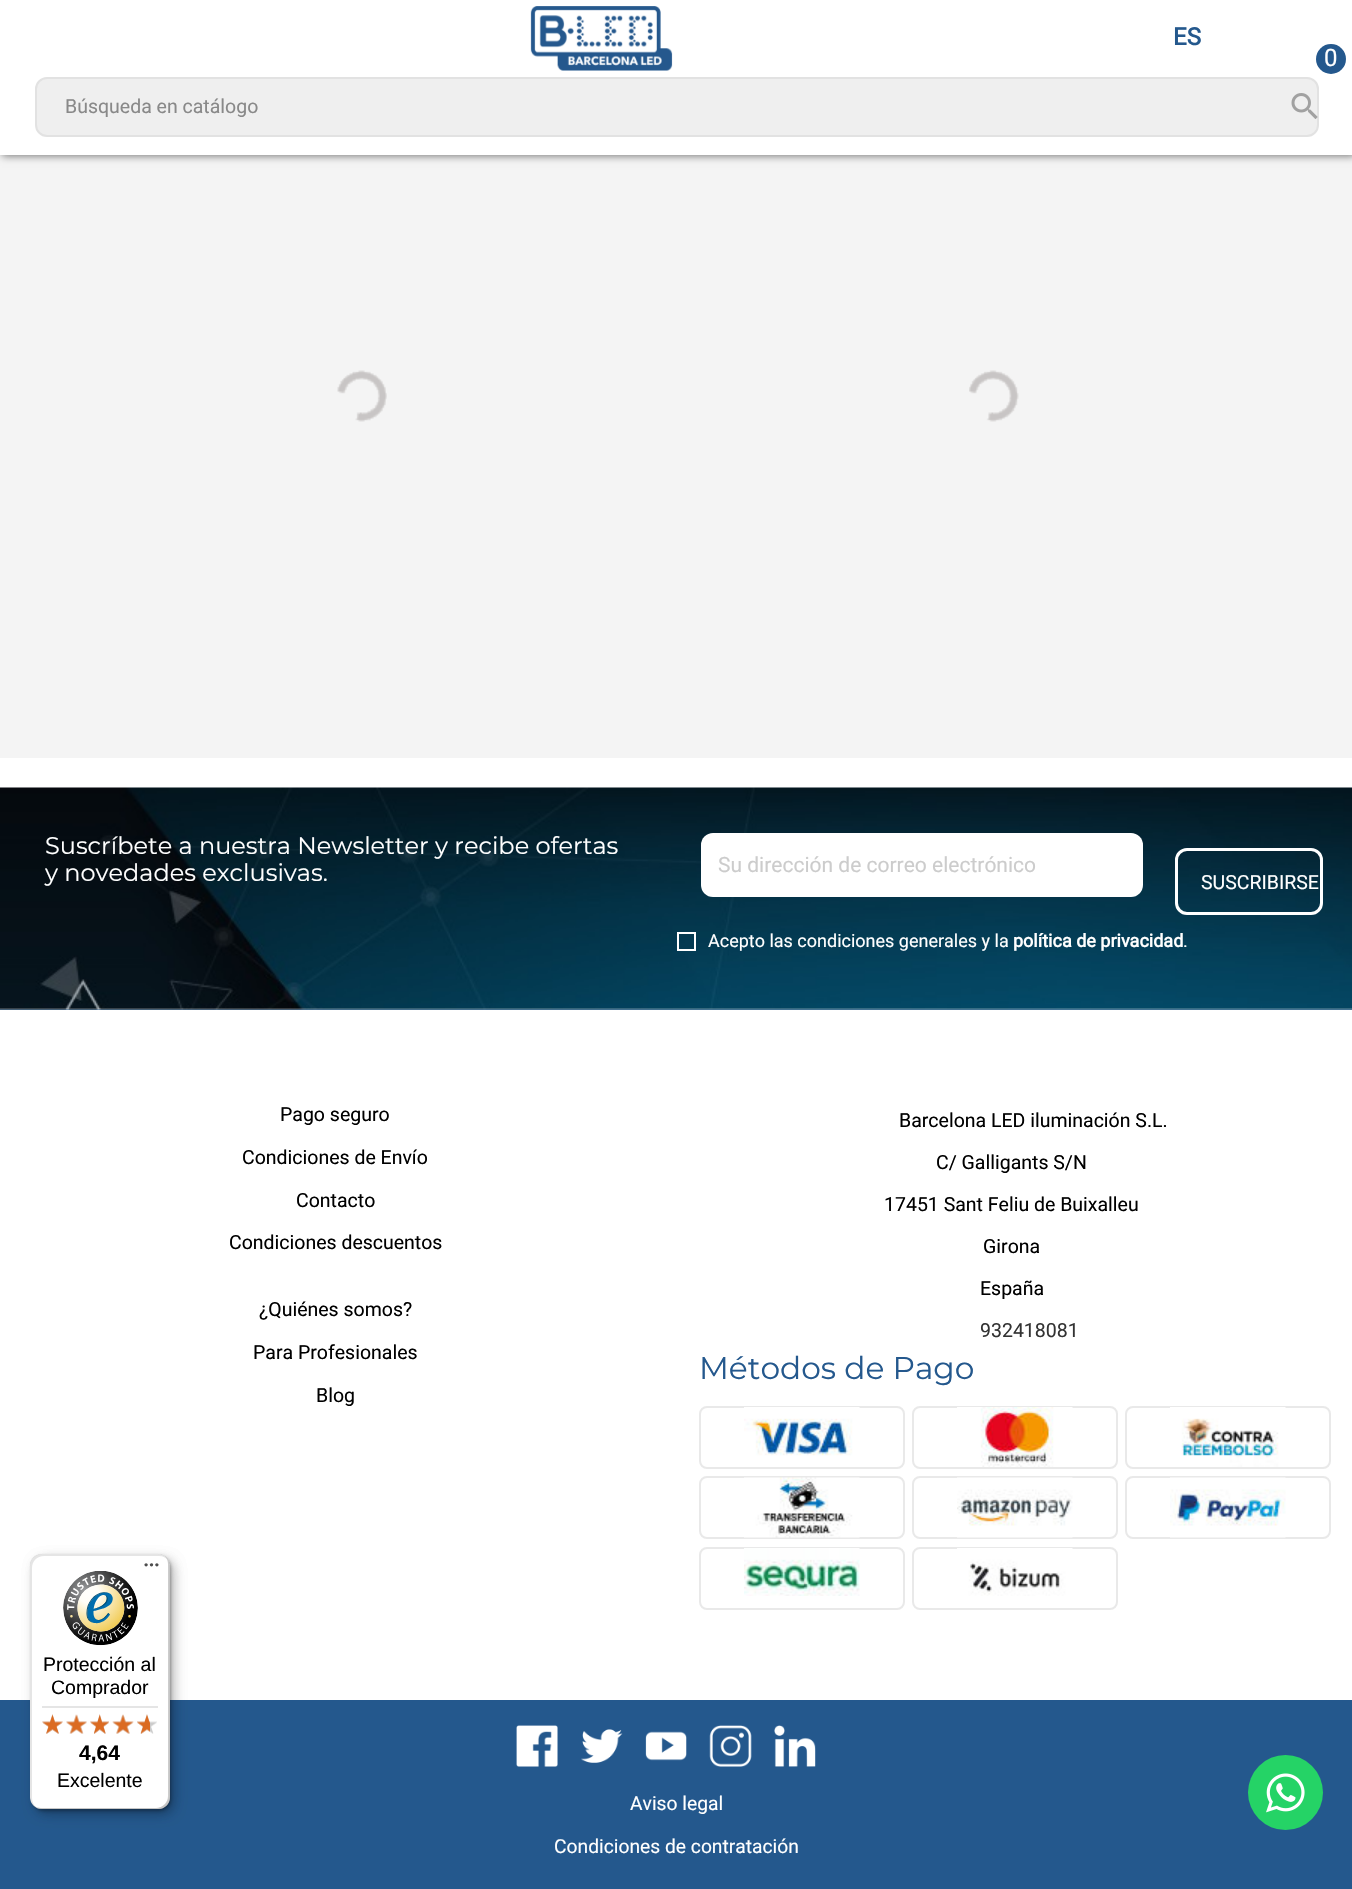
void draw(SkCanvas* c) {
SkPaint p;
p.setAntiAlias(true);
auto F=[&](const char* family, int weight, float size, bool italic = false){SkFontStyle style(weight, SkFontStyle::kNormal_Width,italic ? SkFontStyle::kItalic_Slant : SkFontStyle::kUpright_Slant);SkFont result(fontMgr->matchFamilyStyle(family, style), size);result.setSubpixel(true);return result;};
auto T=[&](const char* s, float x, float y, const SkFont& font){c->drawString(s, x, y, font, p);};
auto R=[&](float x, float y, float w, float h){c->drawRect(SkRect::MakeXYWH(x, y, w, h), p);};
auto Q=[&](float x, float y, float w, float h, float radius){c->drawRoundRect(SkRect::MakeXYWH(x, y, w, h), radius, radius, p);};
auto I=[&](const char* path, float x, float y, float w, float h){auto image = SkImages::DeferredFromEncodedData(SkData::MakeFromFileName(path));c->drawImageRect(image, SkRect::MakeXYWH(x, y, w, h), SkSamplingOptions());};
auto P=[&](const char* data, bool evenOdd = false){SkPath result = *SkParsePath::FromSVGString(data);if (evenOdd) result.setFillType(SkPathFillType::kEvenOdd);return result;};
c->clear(0xffffffff);
p.setColor(0xfff4f4f4);
R(0,155,1352,603);
p.setColor(0xff777777);
p.setMaskFilter(SkMaskFilter::MakeBlur(kNormal_SkBlurStyle, 4));
c->drawRect(SkRect::MakeXYWH(2,2,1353,154),p);
p.setMaskFilter(nullptr);
p.setColor(0xffffffff);
R(0,0,1352,155);
I("1.png",530,6,143,65);
auto f1 = F("Roboto",700,24);
p.setColor(0xff24588d);
T("ES",1173,45,f1);
c->drawCircle(1331,59,15,p);
auto f2 = F("Roboto",400,24);
p.setColor(0xffffffff);
T("0",1324,66,f2);
p.setColor(0xffefefef);
c->drawRoundRect(SkRect::MakeXYWH(36,78,1282,58),11,11,p);
p.setStroke(true);
p.setStrokeWidth(2);
p.setColor(0xffe2e2e2);
c->drawRoundRect(SkRect::MakeXYWH(36,78,1282,58),11,11,p);
auto f3 = F("Roboto",400,19.5);
p.setStroke(false);
p.setColor(0xff898989);
T("Búsqueda en catálogo",65,113,f3);
I("2.png",1291,93,27,26);
I("3.png",337,370,50,52);
I("4.png",969,370,50,52);
p.setColor(0xff24588d);
R(0,1009,1352,1);
I("5.png",0,787,1352,223);
p.setColor(0x33ffffff);
R(0,1008,1352,2);
auto f4 = F("Montserrat",400,24);
p.setColor(0xffffffff);
T("Suscríbete a nuestra Newsletter y recibe ofertas",45,854,f4);
T("y novedades exclusivas.",45,881,f4);
Q(701,833,442,64,12);
auto f5 = F("Roboto",400,21);
p.setColor(0xffcccccc);
T("Su dirección de correo electrónico",718,872,f5);
p.setStroke(true);
p.setStrokeWidth(3);
p.setColor(0xffffffff);
c->drawRoundRect(SkRect::MakeXYWH(1176.5,849.5,145,64),10.5,10.5,p);
p.setStroke(false);
T("SUSCRIBIRSE",1201,889,f3);
p.setStroke(true);
p.setStrokeWidth(2);
c->drawRect(SkRect::MakeXYWH(678,933,17,17),p);
auto f6 = F("Roboto",400,18);
p.setStroke(false);
T("Acepto las condiciones generales y la",708,947,f6);
auto f7 = F("Roboto",700,18);
T("política de privacidad",1013,947,f7);
T(".",1183,947,f6);
p.setColor(0xff000000);
T("Pago seguro",280,1121,f3);
T("Condiciones de Envío",242,1164,f3);
T("Contacto",296,1207,f3);
T("Condiciones descuentos",229,1249,f3);
T("¿Quiénes somos?",259,1316,f3);
T("Para Profesionales",253,1359,f3);
T("Blog",316,1402,f3);
T("Barcelona LED iluminación S.L.",899,1127,f3);
T("C/ Galligants S/N",936,1169,f3);
T("17451 Sant Feliu de Buixalleu",884,1211,f3);
T("Girona",983,1253,f3);
T("España",980,1295,f3);
p.setColor(0xff333333);
T("932418081",980,1337,f3);
auto f8 = F("Montserrat",400,31.25);
p.setColor(0xff24588d);
T("Métodos de Pago",699,1379,f8);
p.setStroke(true);
p.setColor(0xffe9e9e9);
c->drawRoundRect(SkRect::MakeXYWH(700,1407,204,61),7,7,p);
I("6.png",744,1407,116,49);
c->drawRoundRect(SkRect::MakeXYWH(913,1407,204,61),7,7,p);
I("7.png",957,1407,116,60);
c->drawRoundRect(SkRect::MakeXYWH(1126,1407,204,61),7,7,p);
I("8.png",1170,1407,116,60);
c->drawRoundRect(SkRect::MakeXYWH(700,1477,204,61),7,7,p);
I("9.png",744,1477,116,61);
c->drawRoundRect(SkRect::MakeXYWH(913,1477,204,61),7,7,p);
I("10.png",957,1477,116,61);
c->drawRoundRect(SkRect::MakeXYWH(1126,1477,204,61),7,7,p);
I("11.png",1170,1477,116,61);
c->drawRoundRect(SkRect::MakeXYWH(700,1548,204,61),7,7,p);
I("12.png",744,1548,116,48);
c->drawRoundRect(SkRect::MakeXYWH(913,1548,204,61),7,7,p);
I("13.png",957,1548,116,48);
p.setStroke(false);
p.setColor(0xff24588d);
R(0,1700,1352,189);
I("14.png",516,1725,42,42);
I("15.png",581,1729,42,34);
I("16.png",645,1731,42,30);
I("17.png",709,1725,43,42);
I("18.png",774,1725,42,42);
auto f9 = F("Roboto",400,19.25);
p.setColor(0xffffffff);
T("Aviso legal",630,1810,f9);
T("Condiciones de contratación",554,1853,f9);
p.setColor(0x26000000);
p.setMaskFilter(SkMaskFilter::MakeBlur(kNormal_SkBlurStyle, 6));
c->drawRoundRect(SkRect::MakeXYWH(35,1559,139,255),12,12,p);
p.setMaskFilter(nullptr);
p.setMaskFilter(SkMaskFilter::MakeBlur(kNormal_SkBlurStyle, 1.5));
c->drawRoundRect(SkRect::MakeXYWH(32,1556,139,255),12,12,p);
p.setMaskFilter(nullptr);
p.setColor(0x1a000000);
c->drawPath(P("M44 1556h115c4 0 8 2 10 5c-2-4-6-7-11-7h-116c-7 0-12 5-12 12v231c0 5 3 9 7 11c-3-2-5-6-5-10v-230c0-7 5-12 12-12z"),p);
p.setColor(0x33000000);
c->drawPath(P("M35 1806c2 2 4 3 7 3h116c7 0 12-5 12-12v-231c0-4-2-7-5-10c2 3 3 5 3 8v232c0 6-5 12-12 12h-116c-2 0-4-1-5-2z"),p);
p.setColor(0x33323232);
c->drawPath(P("M34 1806c2 2 5 3 8 3h116c7 0 12-5 12-12v-231c0-4-2-7-4-9c2 2 3 5 3 8v231c0 7-6 12-12 12h-116c-3 0-5-1-7-2z"),p);
p.setColor(0x4dffffff);
c->drawPath(P("M33 1805c2 2 5 4 9 4h116c7 0 12-5 12-12v-231c0-5-2-8-6-10c3 2 5 5 5 9v231c0 7-6 12-12 12h-116c-3 0-6-1-8-3z"),p);
p.setColor(0x26000000);
p.setMaskFilter(SkMaskFilter::MakeBlur(kNormal_SkBlurStyle, 6));
c->drawRoundRect(SkRect::MakeXYWH(35,1559,139,255),12,12,p);
p.setMaskFilter(nullptr);
p.setMaskFilter(SkMaskFilter::MakeBlur(kNormal_SkBlurStyle, 1.5));
c->drawRoundRect(SkRect::MakeXYWH(32,1556,139,255),12,12,p);
p.setMaskFilter(nullptr);
p.setColor(0xffffffff);
Q(30,1554,140,255,12);
p.setColor(0x1a000000);
c->drawPath(P("M44 1556h115c4 0 8 2 10 5c-2-4-6-7-11-7h-116c-7 0-12 5-12 12v231c0 5 3 9 7 11c-3-2-5-6-5-10v-230c0-7 5-12 12-12z"),p);
p.setColor(0x33000000);
c->drawPath(P("M35 1806c2 2 4 3 7 3h116c7 0 12-5 12-12v-231c0-4-2-7-5-10c2 3 3 5 3 8v232c0 6-5 12-12 12h-116c-2 0-4-1-5-2z"),p);
p.setColor(0x33323232);
c->drawPath(P("M34 1806c2 2 5 3 8 3h116c7 0 12-5 12-12v-231c0-4-2-7-4-9c2 2 3 5 3 8v231c0 7-6 12-12 12h-116c-3 0-5-1-7-2z"),p);
p.setColor(0x4dffffff);
c->drawPath(P("M33 1805c2 2 5 4 9 4h116c7 0 12-5 12-12v-231c0-5-2-8-6-10c3 2 5 5 5 9v231c0 7-6 12-12 12h-116c-3 0-6-1-8-3z"),p);
I("19.png",144,1563,15,4);
I("20.png",63,1571,75,75);
auto f10 = F("Liberation Sans",400,19.5);
p.setColor(0xff000000);
T("Protección al",43,1671,f10);
T("Comprador",51,1694,f10);
p.setColor(0xffe5e5e5);
R(42,1706,116,2);
I("21.png",42,1714,21,20);
I("22.png",66,1715,21,19);
I("23.png",90,1714,19,20);
I("24.png",113,1715,20,19);
I("25.png",137,1714,20,20);
I("26.png",42,1714,21,20);
I("27.png",66,1714,21,20);
I("28.png",90,1714,19,20);
I("29.png",112,1714,22,20);
I("30.png",137,1714,13,20);
auto f11 = F("Liberation Sans",700,21);
p.setColor(0xff000000);
T("4,64",79,1760,f11);
T("Excelente",57,1787,f10);
p.setColor(0xff25d366);
c->drawCircle(1285.5,1792.5,37.5,p);
I("31.png",1266,1773,39,40);
}
